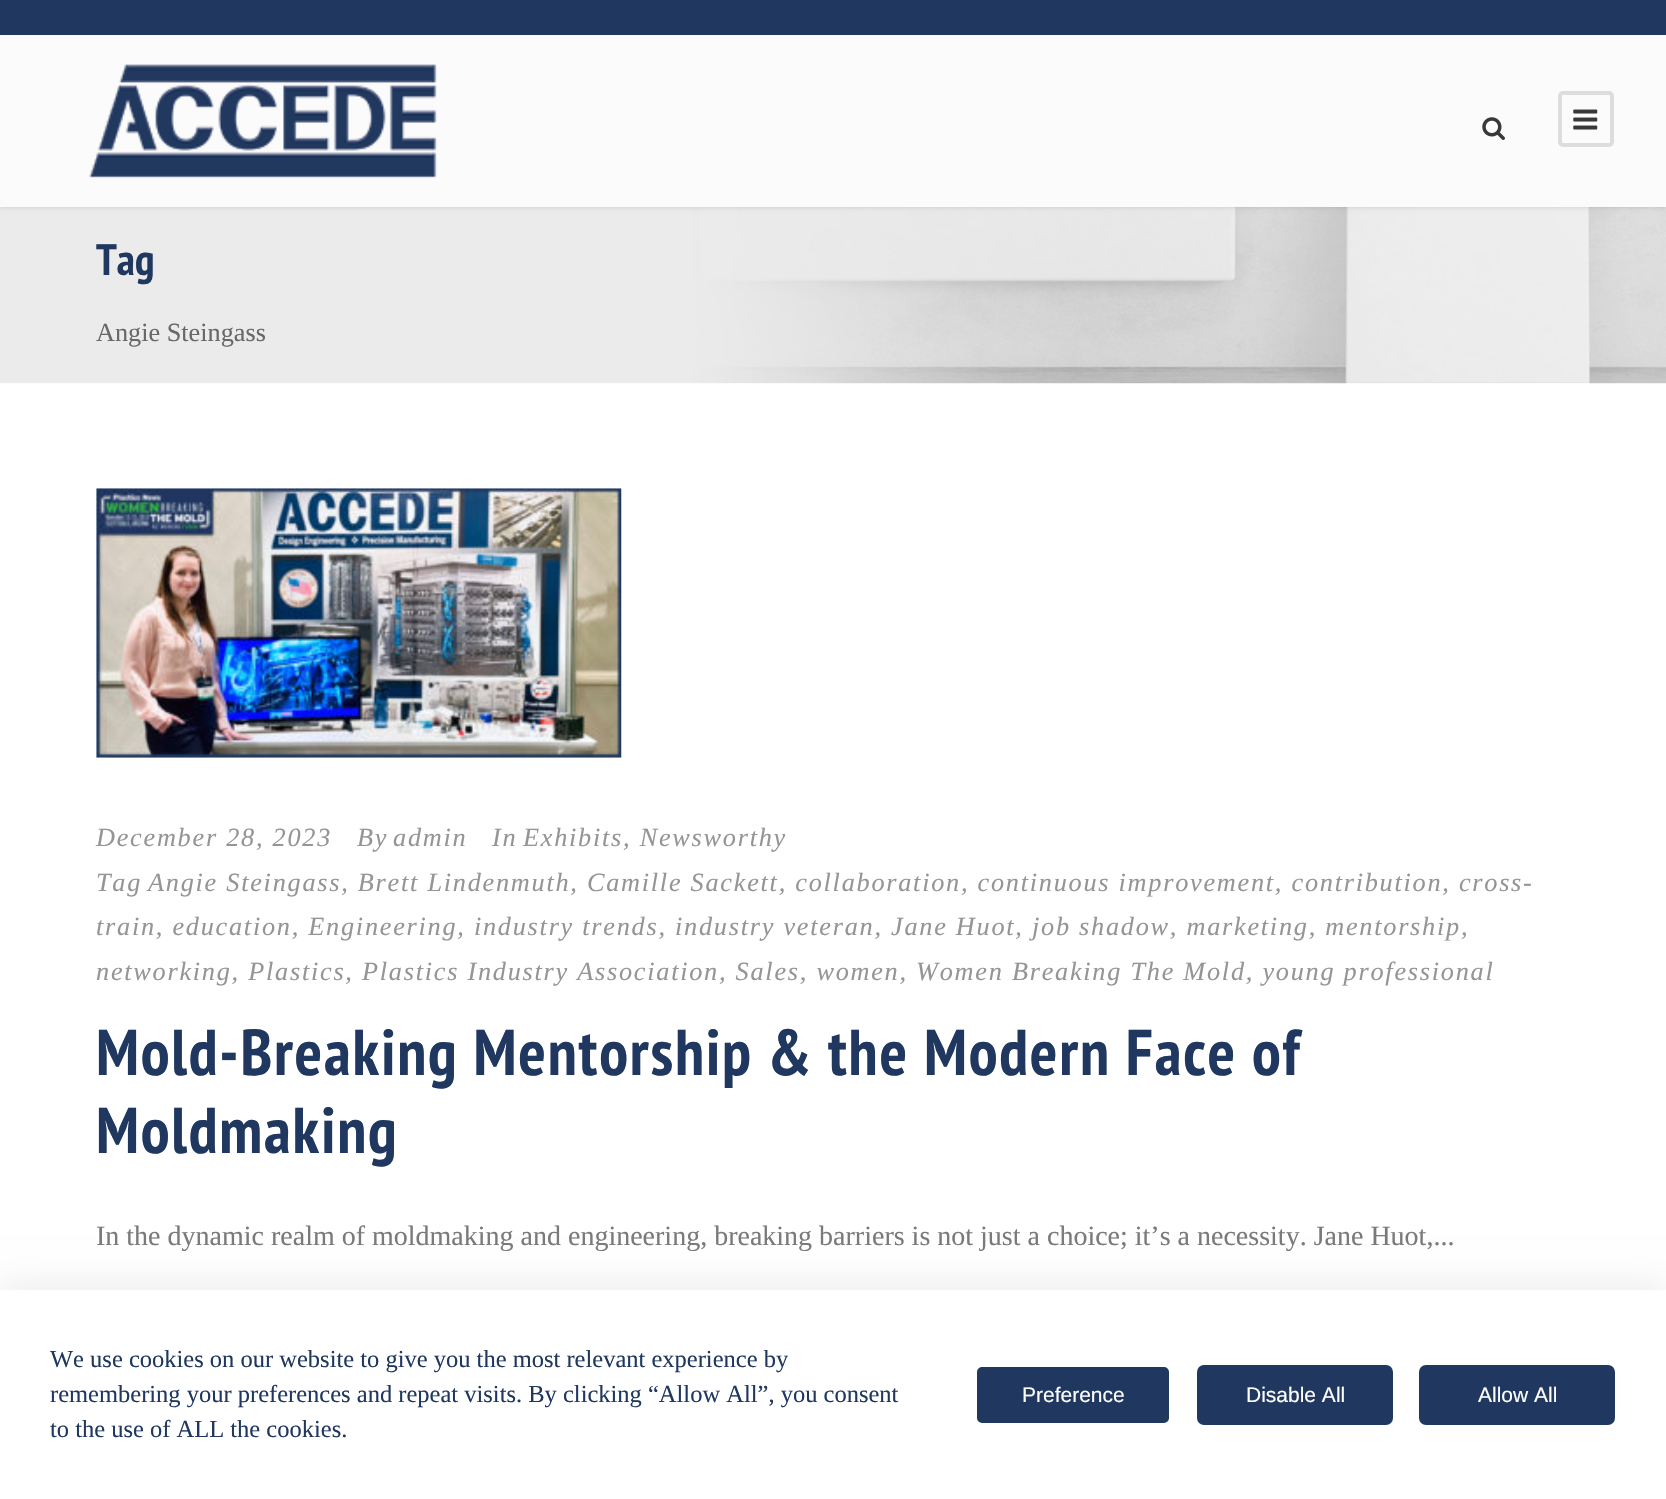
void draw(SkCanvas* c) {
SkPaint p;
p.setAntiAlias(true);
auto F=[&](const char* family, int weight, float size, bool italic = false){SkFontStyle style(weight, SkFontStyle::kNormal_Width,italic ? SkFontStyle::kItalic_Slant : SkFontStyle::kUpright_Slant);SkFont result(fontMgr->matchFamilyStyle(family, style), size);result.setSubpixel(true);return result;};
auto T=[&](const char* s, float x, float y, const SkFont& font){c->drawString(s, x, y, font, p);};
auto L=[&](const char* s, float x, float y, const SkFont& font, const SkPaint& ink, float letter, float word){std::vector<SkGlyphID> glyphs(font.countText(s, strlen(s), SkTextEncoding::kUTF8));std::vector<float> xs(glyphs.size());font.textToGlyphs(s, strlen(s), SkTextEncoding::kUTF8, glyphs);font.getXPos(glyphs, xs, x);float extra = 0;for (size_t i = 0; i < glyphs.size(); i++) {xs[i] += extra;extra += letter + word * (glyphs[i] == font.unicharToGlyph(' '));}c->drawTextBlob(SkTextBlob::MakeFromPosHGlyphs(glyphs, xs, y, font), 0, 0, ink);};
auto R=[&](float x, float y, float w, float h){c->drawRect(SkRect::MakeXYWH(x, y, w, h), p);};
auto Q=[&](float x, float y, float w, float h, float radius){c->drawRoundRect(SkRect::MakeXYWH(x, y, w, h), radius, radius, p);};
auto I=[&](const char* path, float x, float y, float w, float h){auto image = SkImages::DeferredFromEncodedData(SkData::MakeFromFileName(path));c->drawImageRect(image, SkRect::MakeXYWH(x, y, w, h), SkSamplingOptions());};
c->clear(0xff20385f);
p.setColor(0xffffffff);
R(0,383,1666,907);
I("4.png",0,207,1666,177);
p.setColor(0x1a000000);
p.setMaskFilter(SkMaskFilter::MakeBlur(kNormal_SkBlurStyle, 2));
c->drawRect(SkRect::MakeXYWH(0,37,1666,171),p);
p.setMaskFilter(nullptr);
p.setColor(0xfffbfbfb);
R(0,35,1666,172);
I("1.png",89,64,348,114);
I("2.png",1482,117,23,23);
p.setStroke(true);
p.setStrokeWidth(4);
p.setColor(0xffdddddd);
c->drawRoundRect(SkRect::MakeXYWH(1560,93,52,52),3,3,p);
I("3.png",1573,109,25,21);
auto f1 = F("PT Sans Narrow",700,44);
p.setStroke(false);
p.setColor(0xff20385f);
T("Tag",96,275,f1);
auto f2 = F("Liberation Serif",400,26.25);
p.setColor(0xff686868);
T("Angie Steingass",96,341,f2);
I("5.png",96,488,526,270);
auto f3 = F("Liberation Serif",400,26.25,true);
p.setColor(0xff959595);
L("December 28, 2023",96,846,f3,p,1.75,0);
L("By",357,846,f3,p,1.75,0);
L("admin",393,846,f3,p,1.75,0);
L("In",492,846,f3,p,1.75,0);
L("Exhibits, Newsworthy",523,846,f3,p,1.75,0);
L("Tag",96,891,f3,p,1.75,0);
L("Angie Steingass, Brett Lindenmuth, Camille Sackett, collaboration, continuous improvement, contribution, cross-",148,891,f3,p,1.75,0);
L("train, education, Engineering, industry trends, industry veteran, Jane Huot, job shadow, marketing, mentorship,",96,935,f3,p,1.75,0);
L("networking, Plastics, Plastics Industry Association, Sales, women, Women Breaking The Mold, young professional",96,980,f3,p,1.75,0);
auto f4 = F("PT Sans Narrow",700,64.75);
p.setColor(0xff20385f);
L("Mold-Breaking Mentorship & the Modern Face of",96,1075,f4,p,1.75,0);
L("Moldmaking",96,1153,f4,p,1.75,0);
auto f5 = F("Liberation Serif",400,28);
p.setColor(0xff7a7a7a);
T("In the dynamic realm of moldmaking and engineering, breaking barriers is not just a choice; it’s a necessity. Jane Huot,...",96,1245,f5);
p.setColor(0x12000000);
p.setMaskFilter(SkMaskFilter::MakeBlur(kNormal_SkBlurStyle, 16.5));
c->drawRect(SkRect::MakeXYWH(0,1283,1666,210),p);
p.setMaskFilter(nullptr);
p.setColor(0xffffffff);
R(0,1290,1666,209);
auto f6 = F("Liberation Serif",400,24.5);
p.setColor(0xff20385f);
T("We use cookies on our website to give you the most relevant experience by",50,1367,f6);
T("remembering your preferences and repeat visits. By clicking “Allow All”, you consent",50,1402,f6);
T("to the use of ALL the cookies.",50,1437,f6);
c->drawRoundRect(SkRect::MakeXYWH(976,1366,194,58),6,6,p);
p.setStroke(true);
p.setStrokeWidth(2);
p.setColor(0xffffffff);
c->drawRoundRect(SkRect::MakeXYWH(976,1366,194,58),6,6,p);
auto f7 = F("Liberation Sans",400,21);
p.setStroke(false);
T("Preference",1022,1402,f7);
p.setColor(0xff20385f);
Q(1197,1365,196,60,7);
p.setColor(0xffffffff);
T("Disable All",1246,1402,f7);
p.setColor(0xff20385f);
Q(1419,1365,196,60,7);
p.setColor(0xffffffff);
T("Allow All",1478,1402,f7);
}
